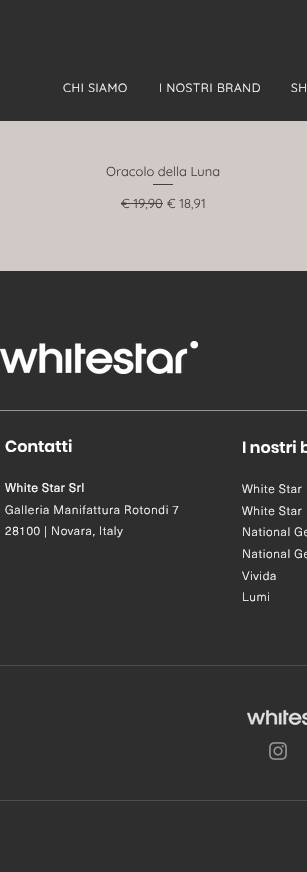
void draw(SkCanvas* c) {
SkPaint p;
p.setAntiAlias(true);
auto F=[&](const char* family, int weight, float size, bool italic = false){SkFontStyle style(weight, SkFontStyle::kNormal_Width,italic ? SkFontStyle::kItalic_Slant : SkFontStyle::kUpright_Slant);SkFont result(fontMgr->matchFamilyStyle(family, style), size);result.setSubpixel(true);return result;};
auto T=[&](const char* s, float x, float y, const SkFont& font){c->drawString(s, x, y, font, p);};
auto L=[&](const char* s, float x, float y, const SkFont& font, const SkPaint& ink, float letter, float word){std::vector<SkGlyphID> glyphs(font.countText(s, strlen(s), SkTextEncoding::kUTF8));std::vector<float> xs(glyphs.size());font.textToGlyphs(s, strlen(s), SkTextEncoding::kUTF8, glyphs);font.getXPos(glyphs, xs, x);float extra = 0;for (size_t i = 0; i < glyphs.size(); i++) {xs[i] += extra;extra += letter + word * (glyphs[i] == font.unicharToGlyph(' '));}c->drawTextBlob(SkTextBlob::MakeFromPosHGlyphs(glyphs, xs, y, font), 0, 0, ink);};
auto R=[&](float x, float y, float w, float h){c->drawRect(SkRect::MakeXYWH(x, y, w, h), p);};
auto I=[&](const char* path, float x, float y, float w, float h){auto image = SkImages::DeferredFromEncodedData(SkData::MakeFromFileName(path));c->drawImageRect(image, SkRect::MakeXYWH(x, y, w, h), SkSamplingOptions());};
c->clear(0xffd1c9c6);
p.setColor(0xff302f2f);
R(0,0,307,121);
auto f1 = F("Quicksand",400,12);
p.setColor(0xffffffff);
L("CHI SIAMO",63,92,f1,p,.6,0);
L("I NOSTRI BRAND",159,92,f1,p,.6,0);
L("SH",291,92,f1,p,.6,0);
auto f2 = F("Quicksand",400,13);
p.setColor(0xff424141);
T("Oracolo della Luna",106,176,f2);
R(153,184,20,1);
T("€ 19,90",121,208,f2);
R(121,203,42,1);
T("€ 18,91",167,208,f2);
p.setColor(0xff2f2e2e);
R(0,271,307,601);
I("1.png",0,341,198,33);
p.setColor(0xff959494);
R(0,410,307,1);
auto f3 = F("Poppins",600,16);
p.setColor(0xffffffff);
T("Contatti",5,452,f3);
T("I nostri b",242,453,f3);
auto f4 = F("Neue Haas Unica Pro",700,12);
L("White Star Srl",5,492,f4,p,.6,0);
auto f5 = F("Neue Haas Unica Pro",300,12);
L("Galleria Manifattura Rotondi 7",5,514,f5,p,.6,0);
L("28100 | Novara, Italy",5,535,f5,p,.6,0);
L("White Star",242,493,f5,p,.6,0);
L("White Star",242,515,f5,p,.6,0);
L("National Ge",242,536,f5,p,.6,0);
L("National Ge",242,558,f5,p,.6,0);
L("Vivida",242,580,f5,p,.6,0);
L("Lumi",242,601,f5,p,.6,0);
p.setColor(0xff4f4e4e);
R(0,665,307,1);
I("2.png",247,710,60,15);
I("3.png",269,742,18,18);
R(0,800,307,1);
}
